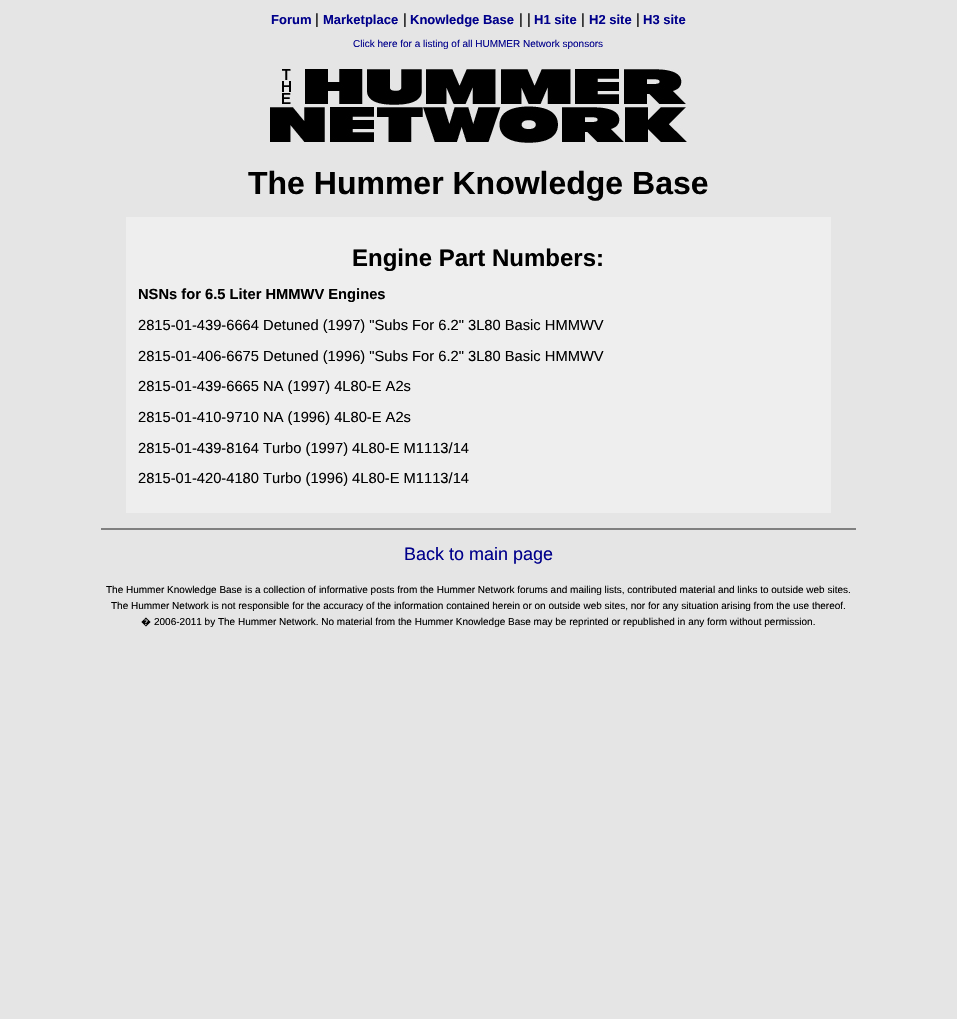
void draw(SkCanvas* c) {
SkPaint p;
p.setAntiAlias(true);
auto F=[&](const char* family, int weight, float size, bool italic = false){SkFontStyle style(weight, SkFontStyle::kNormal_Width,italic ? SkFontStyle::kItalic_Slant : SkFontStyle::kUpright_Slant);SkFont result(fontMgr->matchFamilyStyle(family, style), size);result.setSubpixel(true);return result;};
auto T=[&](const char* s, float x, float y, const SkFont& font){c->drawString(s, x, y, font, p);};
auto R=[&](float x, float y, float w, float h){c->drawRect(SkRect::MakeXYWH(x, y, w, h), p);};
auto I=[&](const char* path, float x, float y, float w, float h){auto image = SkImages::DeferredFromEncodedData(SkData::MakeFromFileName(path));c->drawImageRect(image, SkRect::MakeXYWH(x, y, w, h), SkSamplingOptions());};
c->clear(0xffe5e5e5);
auto f1 = F("Liberation Sans",700,13);
p.setColor(0xff00008b);
T("Forum",271,24,f1);
auto f2 = F("Liberation Sans",400,14.7);
p.setColor(0xff000000);
T("|",315,24,f2);
p.setColor(0xff00008b);
T("Marketplace",323,24,f1);
p.setColor(0xff000000);
T("|",403,24,f2);
p.setColor(0xff00008b);
T("Knowledge Base",410,24,f1);
p.setColor(0xff000000);
T("| |",519,24,f2);
p.setColor(0xff00008b);
T("H1 site",534,24,f1);
p.setColor(0xff000000);
T("|",581,24,f2);
p.setColor(0xff00008b);
T("H2 site",589,24,f1);
p.setColor(0xff000000);
T("|",636,24,f2);
p.setColor(0xff00008b);
T("H3 site",643,24,f1);
auto f3 = F("Liberation Sans",400,10);
T("Click here for a listing of all HUMMER Network sponsors",353,47,f3);
I("1.png",270,69,417,74);
auto f4 = F("Liberation Sans",700,32);
p.setColor(0xff000000);
T("The Hummer Knowledge Base",248,194,f4);
p.setColor(0xffeeeeee);
R(126,217,705,296);
auto f5 = F("Liberation Sans",700,24);
p.setColor(0xff000000);
T("Engine Part Numbers:",352,266,f5);
auto f6 = F("Liberation Sans",700,14.7);
T("NSNs for 6.5 Liter HMMWV Engines",138,299,f6);
T("2815-01-439-6664 Detuned (1997) \"Subs For 6.2\" 3L80 Basic HMMWV",138,330,f2);
T("2815-01-406-6675 Detuned (1996) \"Subs For 6.2\" 3L80 Basic HMMWV",138,361,f2);
T("2815-01-439-6665 NA (1997) 4L80-E A2s",138,391,f2);
T("2815-01-410-9710 NA (1996) 4L80-E A2s",138,422,f2);
T("2815-01-439-8164 Turbo (1997) 4L80-E M1113/14",138,453,f2);
T("2815-01-420-4180 Turbo (1996) 4L80-E M1113/14",138,483,f2);
p.setColor(0xff808080);
R(101,528,755,2);
auto f7 = F("Liberation Sans",400,18);
p.setColor(0xff00008b);
T("Back to main page",404,560,f7);
p.setColor(0xff000000);
T("The Hummer Knowledge Base is a collection of informative posts from the Hummer Network forums and mailing lists, contributed material and links to outside web sites.",106,593,f3);
T("The Hummer Network is not responsible for the accuracy of the information contained herein or on outside web sites, nor for any situation arising from the use thereof.",111,609,f3);
auto f8 = F("Noto Sans",400,10);
T("�",141,625,f8);
T("2006-2011 by The Hummer Network. No material from the Hummer Knowledge Base may be reprinted or republished in any form without permission.",154,625,f3);
}
